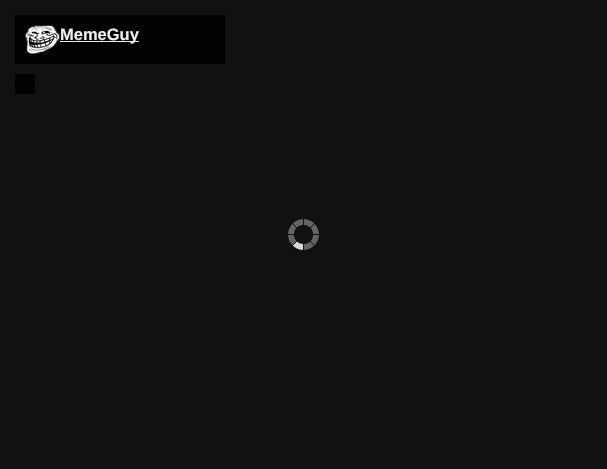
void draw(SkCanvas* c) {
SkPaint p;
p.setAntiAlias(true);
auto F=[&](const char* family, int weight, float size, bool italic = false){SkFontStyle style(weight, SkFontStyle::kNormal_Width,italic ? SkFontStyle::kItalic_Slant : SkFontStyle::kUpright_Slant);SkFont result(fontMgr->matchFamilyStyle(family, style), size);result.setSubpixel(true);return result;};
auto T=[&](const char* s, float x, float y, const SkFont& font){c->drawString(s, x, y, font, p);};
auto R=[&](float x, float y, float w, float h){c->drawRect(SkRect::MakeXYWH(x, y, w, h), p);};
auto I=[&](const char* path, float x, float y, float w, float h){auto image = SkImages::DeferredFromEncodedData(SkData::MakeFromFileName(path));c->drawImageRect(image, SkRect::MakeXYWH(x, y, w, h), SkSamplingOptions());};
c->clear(0xff111111);
p.setColor(0xff030303);
R(15,15,210,49);
I("1.png",25,25,35,29);
p.setColor(0xffeeeeee);
R(60,41,79,1);
auto f1 = F("Liberation Sans",700,16.5);
T("MemeGuy",60,40,f1);
p.setColor(0xff030303);
R(15,74,20,20);
I("2.png",288,219,31,31);
}
